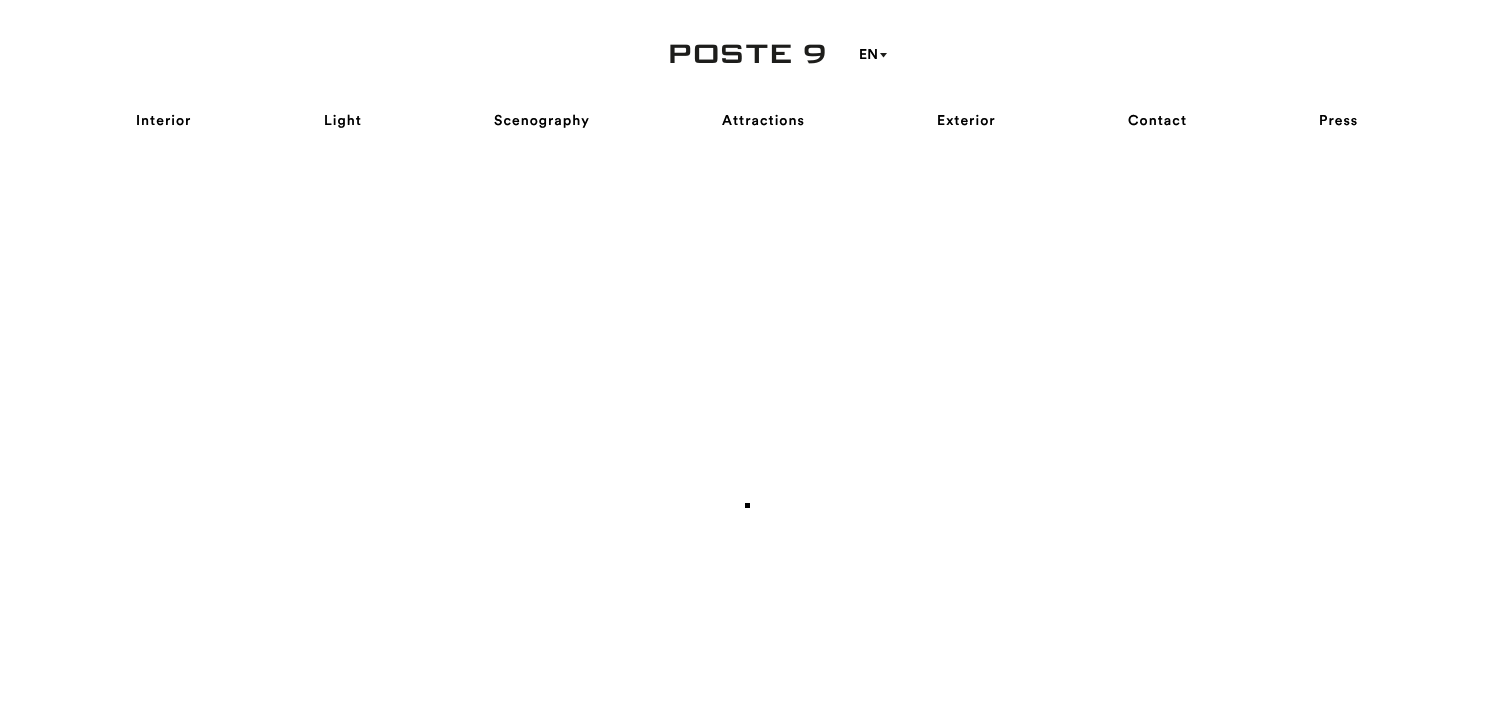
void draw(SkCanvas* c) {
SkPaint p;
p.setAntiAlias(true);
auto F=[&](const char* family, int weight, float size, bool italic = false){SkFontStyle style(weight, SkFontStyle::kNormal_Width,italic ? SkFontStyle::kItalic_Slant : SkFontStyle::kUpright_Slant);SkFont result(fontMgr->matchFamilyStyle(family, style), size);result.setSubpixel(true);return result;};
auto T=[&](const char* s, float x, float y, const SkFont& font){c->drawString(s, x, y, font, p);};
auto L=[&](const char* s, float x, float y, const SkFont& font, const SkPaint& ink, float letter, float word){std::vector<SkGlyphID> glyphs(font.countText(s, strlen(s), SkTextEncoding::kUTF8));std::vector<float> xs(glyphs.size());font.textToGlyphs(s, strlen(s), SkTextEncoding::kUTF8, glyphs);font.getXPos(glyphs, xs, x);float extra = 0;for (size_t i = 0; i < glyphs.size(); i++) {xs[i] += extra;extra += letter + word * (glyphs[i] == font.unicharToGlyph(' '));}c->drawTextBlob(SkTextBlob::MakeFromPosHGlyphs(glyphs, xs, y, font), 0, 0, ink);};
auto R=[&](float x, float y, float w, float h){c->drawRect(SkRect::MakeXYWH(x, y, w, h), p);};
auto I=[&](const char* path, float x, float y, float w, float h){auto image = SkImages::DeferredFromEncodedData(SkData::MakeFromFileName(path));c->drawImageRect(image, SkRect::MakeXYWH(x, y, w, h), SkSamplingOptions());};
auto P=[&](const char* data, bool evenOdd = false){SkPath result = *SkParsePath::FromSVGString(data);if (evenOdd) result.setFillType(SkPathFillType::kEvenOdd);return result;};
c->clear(0xffffffff);
I("1.png",670,44,155,20);
auto f1 = F("Circular",500,14);
p.setColor(0xff000000);
T("EN",859,59,f1);
p.setColor(0xff1d1d1b);
c->drawPath(P("M880 53l3.5 4.5l3.5-4.5z"),p);
p.setColor(0xff000000);
L("Interior",136,125,f1,p,1,0);
L("Light",324,125,f1,p,1,0);
L("Scenography",494,125,f1,p,1,0);
L("Attractions",722,125,f1,p,1,0);
L("Exterior",937,125,f1,p,1,0);
L("Contact",1128,125,f1,p,1,0);
L("Press",1319,125,f1,p,1,0);
R(745,503,5,5);
}
